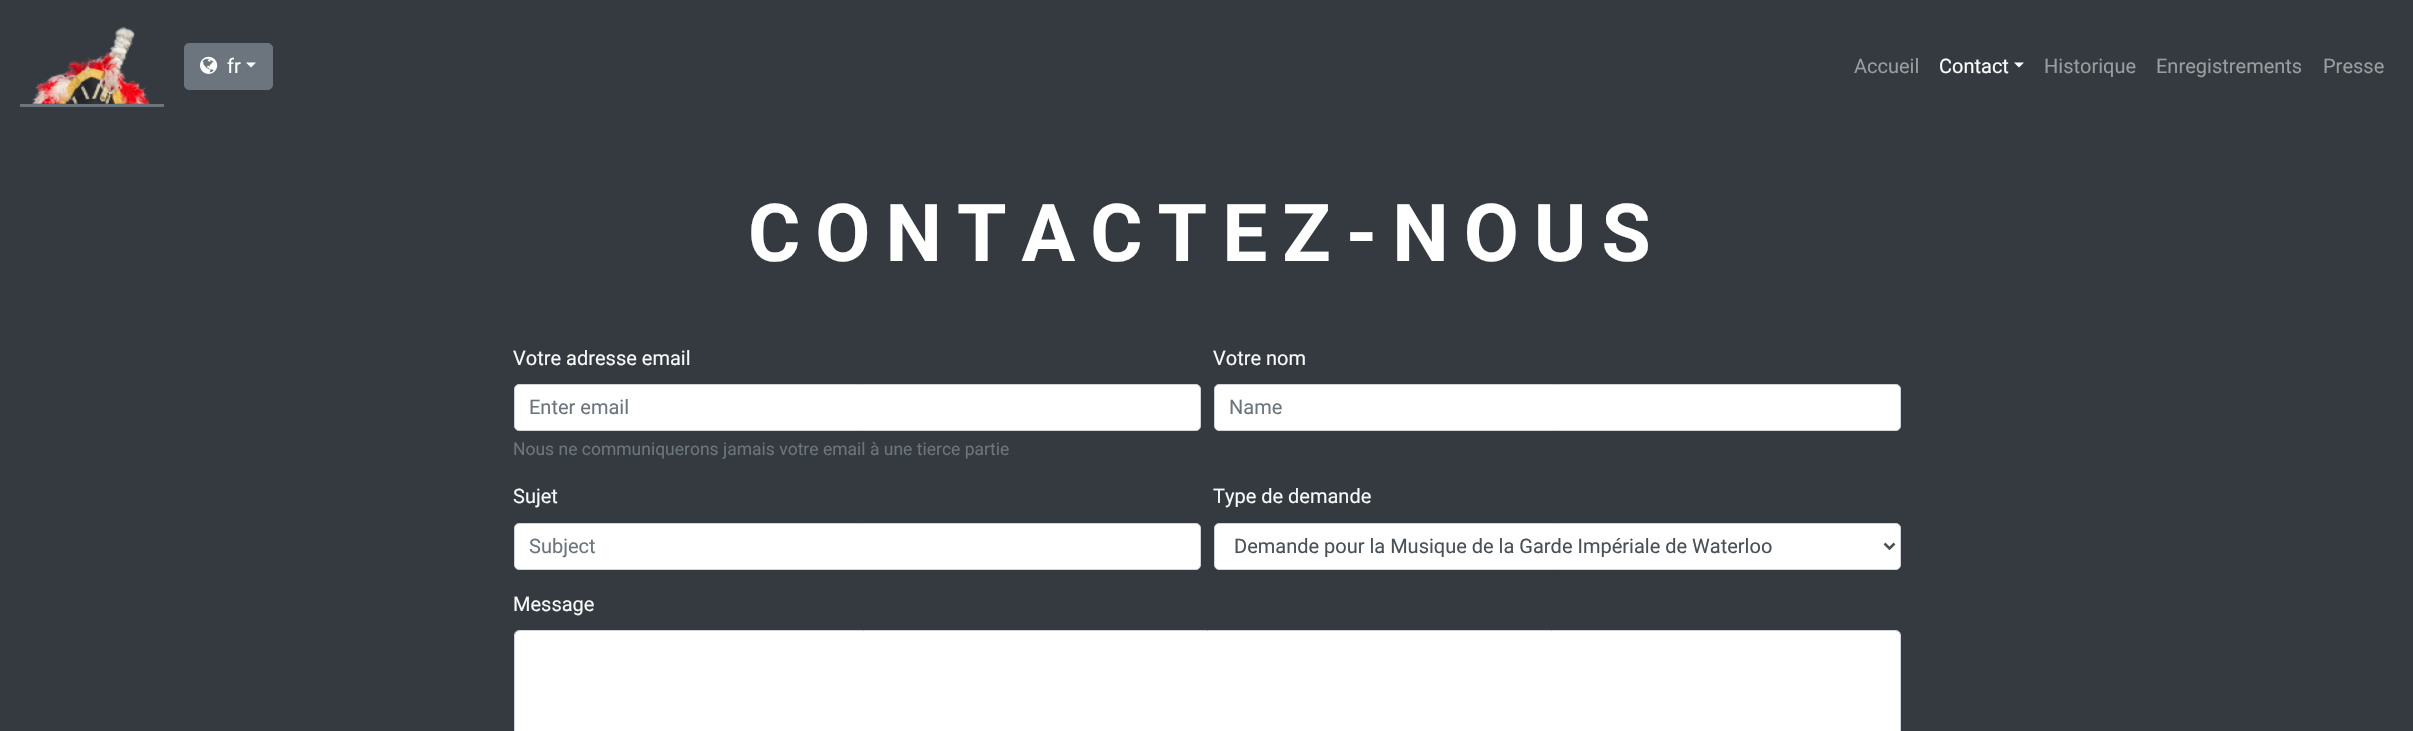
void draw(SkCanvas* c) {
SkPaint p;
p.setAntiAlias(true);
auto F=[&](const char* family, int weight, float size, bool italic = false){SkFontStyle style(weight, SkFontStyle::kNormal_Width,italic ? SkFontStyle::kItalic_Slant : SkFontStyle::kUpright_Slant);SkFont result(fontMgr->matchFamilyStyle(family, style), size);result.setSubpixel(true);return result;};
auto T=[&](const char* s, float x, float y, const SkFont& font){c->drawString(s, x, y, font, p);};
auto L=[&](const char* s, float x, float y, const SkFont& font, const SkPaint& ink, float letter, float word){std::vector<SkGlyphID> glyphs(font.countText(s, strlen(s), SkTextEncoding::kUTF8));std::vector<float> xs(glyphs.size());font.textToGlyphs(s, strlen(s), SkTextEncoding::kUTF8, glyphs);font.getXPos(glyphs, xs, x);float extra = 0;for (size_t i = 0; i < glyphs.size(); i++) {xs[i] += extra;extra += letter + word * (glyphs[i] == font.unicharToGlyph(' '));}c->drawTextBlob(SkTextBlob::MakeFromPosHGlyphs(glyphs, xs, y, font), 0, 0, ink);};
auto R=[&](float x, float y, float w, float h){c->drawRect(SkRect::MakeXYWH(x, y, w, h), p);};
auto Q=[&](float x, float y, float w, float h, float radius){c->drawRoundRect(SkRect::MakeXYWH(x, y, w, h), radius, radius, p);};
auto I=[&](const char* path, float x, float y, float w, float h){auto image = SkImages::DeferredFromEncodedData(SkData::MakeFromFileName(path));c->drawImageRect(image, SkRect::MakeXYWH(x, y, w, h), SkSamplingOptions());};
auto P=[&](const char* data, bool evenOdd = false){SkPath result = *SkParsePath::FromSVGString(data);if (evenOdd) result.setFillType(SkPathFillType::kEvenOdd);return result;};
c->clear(0xff343a40);
I("1.png",31,26,120,78);
p.setColor(0xff6c757d);
R(20,104,144,3);
c->drawRoundRect(SkRect::MakeXYWH(184.5,43.5,88,46),4.5,4.5,p);
p.setStroke(true);
p.setStrokeWidth(1);
c->drawRoundRect(SkRect::MakeXYWH(184.5,43.5,88,46),4.5,4.5,p);
I("2.png",200,56,18,18);
auto f1 = F("Roboto",400,20);
p.setStroke(false);
p.setColor(0xffffffff);
T("fr",227,73,f1);
c->drawPath(P("M246 62.5h10l-5 5z"),p);
p.setColor(0xff9a9da0);
T("Accueil",1854,73,f1);
p.setColor(0xffffffff);
T("Contact",1939,73,f1);
c->drawPath(P("M2014 62.5h10l-5 5z"),p);
p.setColor(0xff9a9da0);
T("Historique",2044,73,f1);
T("Enregistrements",2156,73,f1);
T("Presse",2323,73,f1);
auto f2 = F("Roboto",700,80);
p.setColor(0xffffffff);
L("CONTACTEZ-NOUS",748,261,f2,p,15,0);
p.setColor(0xfff8f9fa);
T("Votre adresse email",513,365,f1);
p.setColor(0xffffffff);
c->drawRoundRect(SkRect::MakeXYWH(514.5,384.5,686,46),4.5,4.5,p);
p.setStroke(true);
p.setColor(0xffced4da);
c->drawRoundRect(SkRect::MakeXYWH(514.5,384.5,686,46),4.5,4.5,p);
p.setStroke(false);
p.setColor(0xff6c757d);
T("Enter email",529,414,f1);
auto f3 = F("Roboto",400,17.5);
T("Nous ne communiquerons jamais votre email à une tierce partie",513,455,f3);
p.setColor(0xfff8f9fa);
T("Votre nom",1213,365,f1);
p.setColor(0xffffffff);
c->drawRoundRect(SkRect::MakeXYWH(1214.5,384.5,686,46),4.5,4.5,p);
p.setStroke(true);
p.setColor(0xffced4da);
c->drawRoundRect(SkRect::MakeXYWH(1214.5,384.5,686,46),4.5,4.5,p);
p.setStroke(false);
p.setColor(0xff6c757d);
T("Name",1229,414,f1);
p.setColor(0xfff8f9fa);
T("Sujet",513,503,f1);
p.setColor(0xffffffff);
c->drawRoundRect(SkRect::MakeXYWH(514.5,523.5,686,46),4.5,4.5,p);
p.setStroke(true);
p.setColor(0xffced4da);
c->drawRoundRect(SkRect::MakeXYWH(514.5,523.5,686,46),4.5,4.5,p);
p.setStroke(false);
p.setColor(0xff6c757d);
T("Subject",529,553,f1);
p.setColor(0xfff8f9fa);
T("Type de demande",1213,503,f1);
p.setColor(0xffffffff);
c->drawRoundRect(SkRect::MakeXYWH(1214.5,523.5,686,46),4.5,4.5,p);
p.setStroke(true);
p.setColor(0xffced4da);
c->drawRoundRect(SkRect::MakeXYWH(1214.5,523.5,686,46),4.5,4.5,p);
p.setStrokeWidth(2.5);
p.setColor(0xff495057);
c->drawPath(P("M1884.5 543.5l5 5l5-5"),p);
p.setStroke(false);
T("Demande pour la Musique de la Garde Impériale de Waterloo",1234,553,f1);
p.setColor(0xfff8f9fa);
T("Message",513,611,f1);
p.setColor(0xffffffff);
Q(515,631,1385,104,4);
p.setStroke(true);
p.setStrokeWidth(1);
p.setColor(0xffced4da);
c->drawRoundRect(SkRect::MakeXYWH(514.5,630.5,1386,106),4.5,4.5,p);
}
